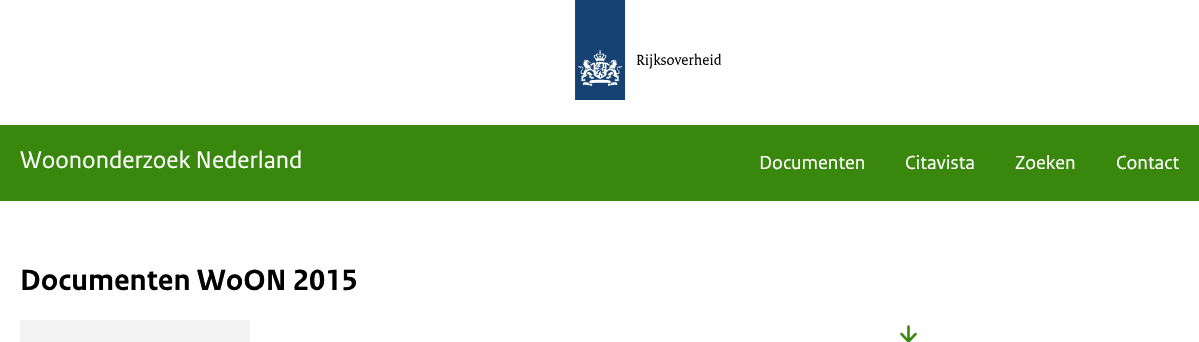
void draw(SkCanvas* c) {
SkPaint p;
p.setAntiAlias(true);
auto F=[&](const char* family, int weight, float size, bool italic = false){SkFontStyle style(weight, SkFontStyle::kNormal_Width,italic ? SkFontStyle::kItalic_Slant : SkFontStyle::kUpright_Slant);SkFont result(fontMgr->matchFamilyStyle(family, style), size);result.setSubpixel(true);return result;};
auto T=[&](const char* s, float x, float y, const SkFont& font){c->drawString(s, x, y, font, p);};
auto R=[&](float x, float y, float w, float h){c->drawRect(SkRect::MakeXYWH(x, y, w, h), p);};
auto I=[&](const char* path, float x, float y, float w, float h){auto image = SkImages::DeferredFromEncodedData(SkData::MakeFromFileName(path));c->drawImageRect(image, SkRect::MakeXYWH(x, y, w, h), SkSamplingOptions());};
c->clear(0xffffffff);
I("1.png",575,0,146,100);
p.setColor(0xff39870c);
R(0,125,1199,76);
auto f1 = F("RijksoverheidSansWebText",400,25);
p.setColor(0xffffffff);
T("Woononderzoek Nederland",20,168,f1);
auto f2 = F("RijksoverheidSansWebText",400,20);
T("Documenten",759,169,f2);
T("Citavista",905,169,f2);
T("Zoeken",1015,169,f2);
T("Contact",1116,169,f2);
auto f3 = F("RijksoverheidSansWebText",700,31);
p.setColor(0xff000000);
T("Documenten WoON 2015",20,290,f3);
p.setColor(0xfff3f3f3);
R(20,320,230,22);
I("2.png",900,325,17,17);
}
